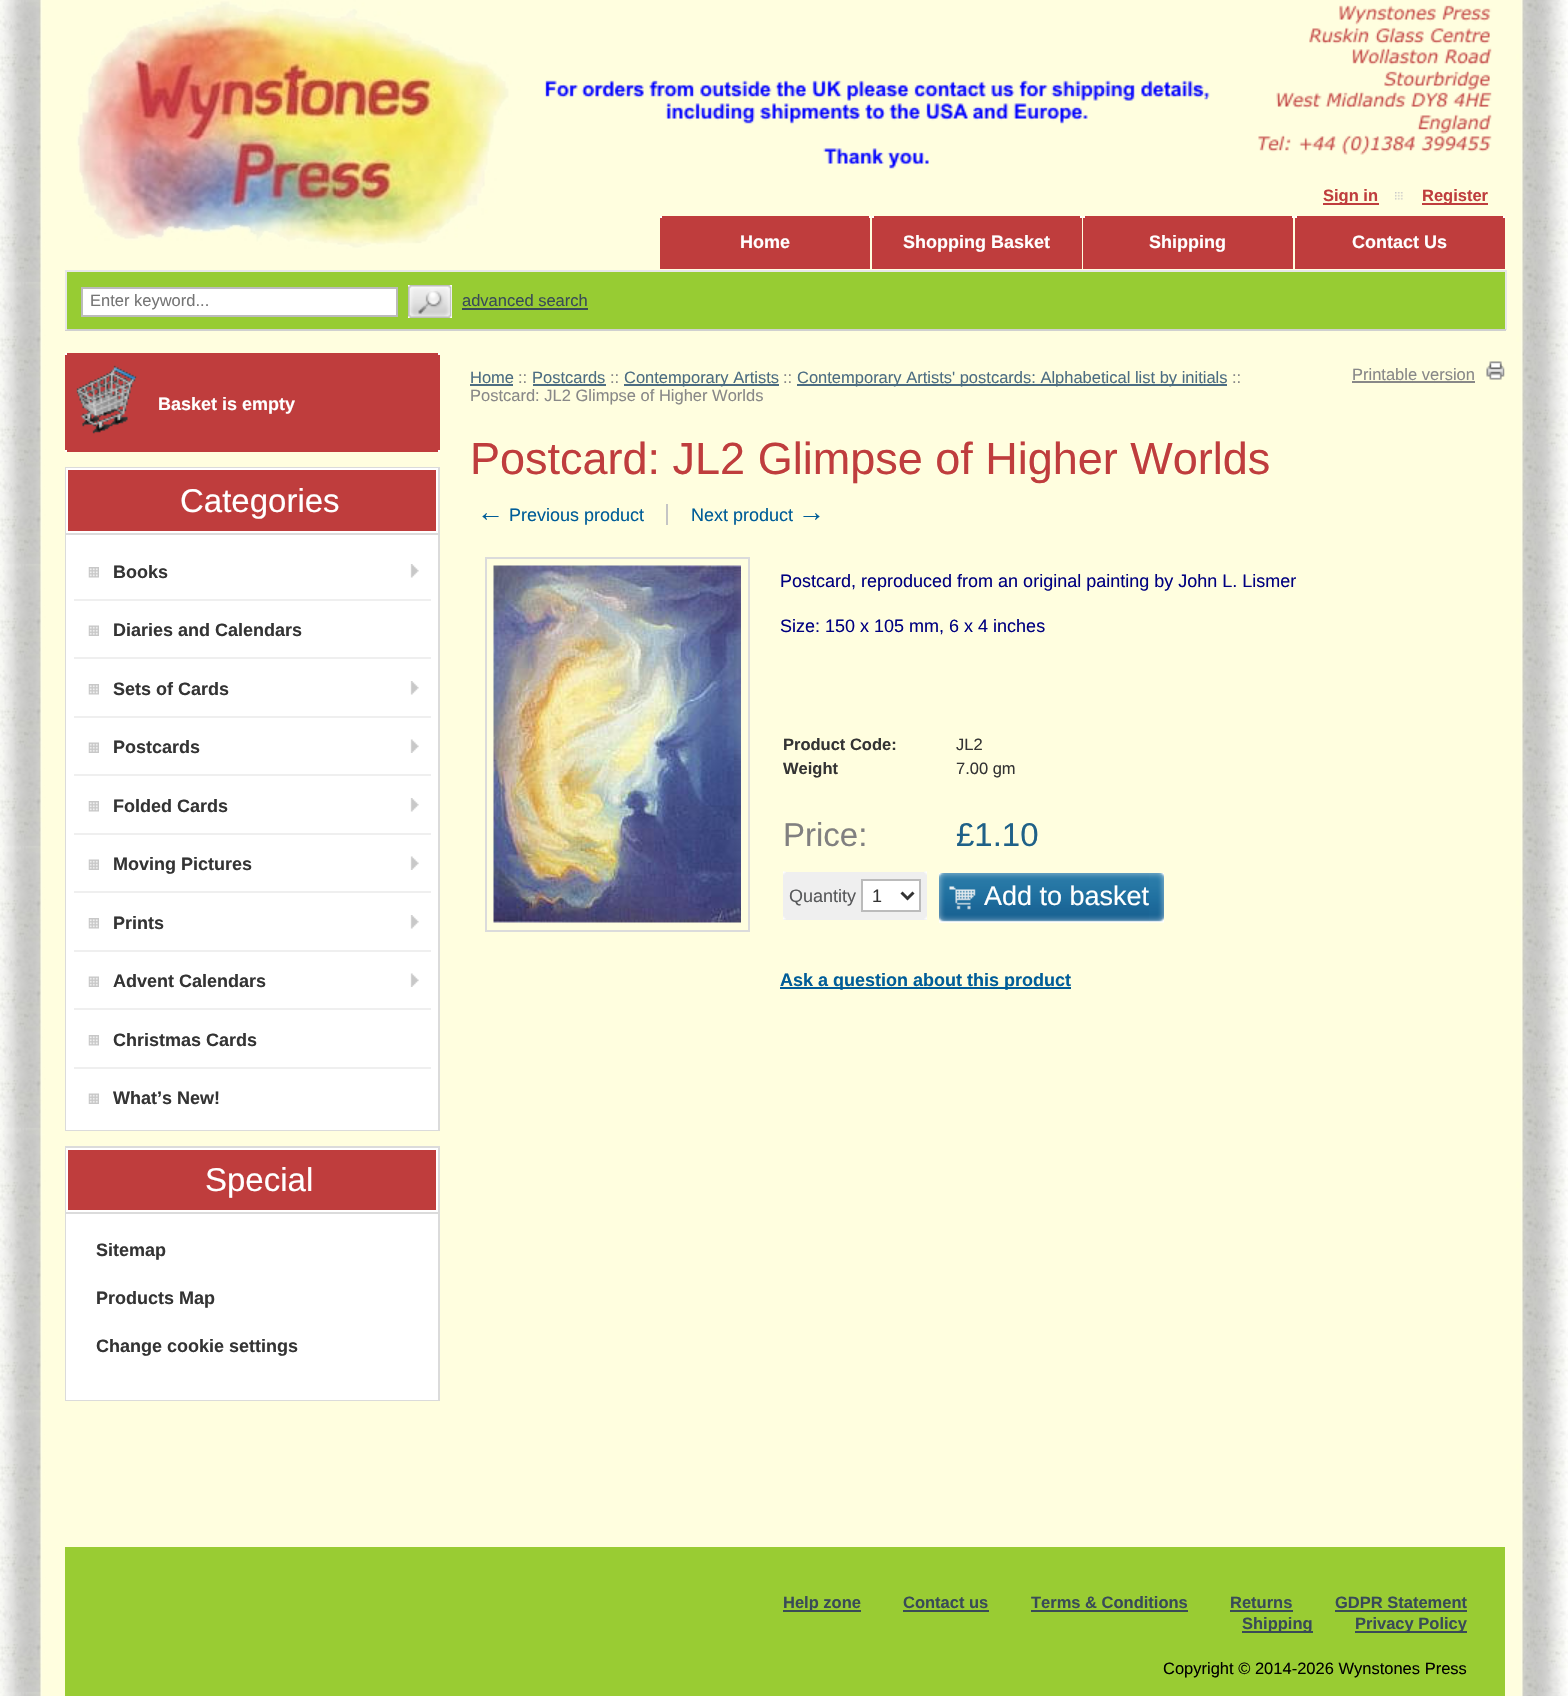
void draw(SkCanvas* c) {
SkPaint p;
p.setAntiAlias(true);
auto F=[&](const char* family, int weight, float size, bool italic = false){SkFontStyle style(weight, SkFontStyle::kNormal_Width,italic ? SkFontStyle::kItalic_Slant : SkFontStyle::kUpright_Slant);SkFont result(fontMgr->matchFamilyStyle(family, style), size);result.setSubpixel(true);return result;};
auto T=[&](const char* s, float x, float y, const SkFont& font){c->drawString(s, x, y, font, p);};
auto R=[&](float x, float y, float w, float h){c->drawRect(SkRect::MakeXYWH(x, y, w, h), p);};
auto I=[&](const char* path, float x, float y, float w, float h){auto image = SkImages::DeferredFromEncodedData(SkData::MakeFromFileName(path));c->drawImageRect(image, SkRect::MakeXYWH(x, y, w, h), SkSamplingOptions());};
auto P=[&](const char* data, bool evenOdd = false){SkPath result = *SkParsePath::FromSVGString(data);if (evenOdd) result.setFillType(SkPathFillType::kEvenOdd);return result;};
c->clear(0xffffffff);
I("1.png",0,0,1568,1696);
I("2.png",76,0,1416,249);
p.setColor(0xffbf3d3d);
R(1323,203,56,2);
auto f1 = F("Liberation Sans",700,16.5);
T("Sign in",1323,201,f1);
I("3.png",1395,192,8,8);
R(1422,203,66,2);
T("Register",1422,201,f1);
R(660,216,210,53);
p.setColor(0xffffffff);
R(660,216,2,2);
R(869,216,2,2);
auto f2 = F("Liberation Sans",700,18);
T("Home",740,248,f2);
p.setColor(0xffbf3d3d);
R(872,216,210,53);
p.setColor(0xffffffff);
R(872,216,2,2);
R(1080,216,2,2);
T("Shopping Basket",903,248,f2);
p.setColor(0xffbf3d3d);
R(1083,216,210,53);
p.setColor(0xffffffff);
R(1083,216,2,2);
R(1292,216,2,2);
T("Shipping",1149,248,f2);
p.setColor(0xffbf3d3d);
R(1295,216,210,53);
p.setColor(0xffffffff);
R(1295,216,2,2);
R(1503,216,2,2);
T("Contact Us",1352,248,f2);
p.setColor(0xff97cc33);
R(67,272,1438,57);
p.setColor(0xffe7e7e7);
R(65,270,1441,2);
R(1505,270,2,60);
p.setColor(0xffd0d0d0);
R(65,329,1441,2);
p.setColor(0xffe7e7e7);
R(65,270,2,60);
p.setColor(0xffffffff);
c->drawRect(SkRect::MakeXYWH(82,288,315,28),p);
p.setStroke(true);
p.setStrokeWidth(2);
p.setColor(0xffbbbbbb);
c->drawRect(SkRect::MakeXYWH(82,288,315,28),p);
auto f3 = F("Liberation Sans",400,16.5);
p.setStroke(false);
p.setColor(0xff757575);
T("Enter keyword...",90,306,f3);
p.setColor(0xffffffff);
R(408,285,44,33);
I("4.png",408,285,44,33);
p.setColor(0xff394b57);
T("advanced search",462,306,f3);
R(462,308,126,2);
p.setColor(0xffbf3d3d);
R(65,353,375,99);
p.setColor(0xffffffff);
R(65,353,2,2);
R(438,353,2,2);
I("5.png",76,365,61,69);
T("Basket is empty",158,410,f2);
R(65,450,2,2);
R(438,450,2,2);
p.setStroke(true);
p.setColor(0xffdbdbdb);
c->drawRect(SkRect::MakeXYWH(66,468,373,662),p);
p.setStroke(false);
p.setColor(0xffbf3d3d);
c->drawRect(SkRect::MakeXYWH(67,469,370,63),p);
p.setStroke(true);
p.setColor(0xffffffff);
c->drawRect(SkRect::MakeXYWH(67,469,370,63),p);
auto f4 = F("Liberation Sans",400,33);
p.setStroke(false);
T("Categories",180,512,f4);
R(66,535,372,595);
p.setColor(0xffdbdbdb);
R(66,533,372,2);
p.setColor(0xffefefef);
R(74,599,357,2);
I("6.png",410,564,9,14);
I("7.png",88,567,11,11);
p.setColor(0xff343434);
T("Books",113,578,f2);
p.setColor(0xffefefef);
R(74,657,357,2);
I("8.png",88,625,11,11);
p.setColor(0xff343434);
T("Diaries and Calendars",113,636,f2);
p.setColor(0xffefefef);
R(74,716,357,2);
I("6.png",410,681,9,14);
I("7.png",88,684,11,11);
p.setColor(0xff343434);
T("Sets of Cards",113,695,f2);
p.setColor(0xffefefef);
R(74,774,357,2);
I("9.png",410,739,9,14);
I("8.png",88,742,11,11);
p.setColor(0xff343434);
T("Postcards",113,753,f2);
p.setColor(0xffefefef);
R(74,833,357,2);
I("6.png",410,798,9,14);
I("7.png",88,801,11,11);
p.setColor(0xff343434);
T("Folded Cards",113,812,f2);
p.setColor(0xffefefef);
R(74,891,357,2);
I("9.png",410,856,9,14);
I("8.png",88,859,11,11);
p.setColor(0xff343434);
T("Moving Pictures",113,870,f2);
p.setColor(0xffefefef);
R(74,950,357,2);
I("6.png",410,915,9,14);
I("7.png",88,918,11,11);
p.setColor(0xff343434);
T("Prints",113,929,f2);
p.setColor(0xffefefef);
R(74,1008,357,2);
I("9.png",410,973,9,14);
I("8.png",88,976,11,11);
p.setColor(0xff343434);
T("Advent Calendars",113,987,f2);
p.setColor(0xffefefef);
R(74,1067,357,2);
I("7.png",88,1035,11,11);
p.setColor(0xff343434);
T("Christmas Cards",113,1046,f2);
I("8.png",88,1093,11,11);
T("What’s New!",113,1104,f2);
p.setStroke(true);
p.setColor(0xffdbdbdb);
c->drawRect(SkRect::MakeXYWH(66,1147,373,253),p);
p.setStroke(false);
p.setColor(0xffbf3d3d);
c->drawRect(SkRect::MakeXYWH(67,1149,370,62),p);
p.setStroke(true);
p.setColor(0xffffffff);
c->drawRect(SkRect::MakeXYWH(67,1149,370,62),p);
p.setStroke(false);
T("Special",205,1191,f4);
R(66,1214,372,186);
p.setColor(0xffdbdbdb);
R(66,1212,372,2);
p.setColor(0xff343434);
T("Sitemap",96,1256,f2);
T("Products Map",96,1304,f2);
T("Change cookie settings",96,1352,f2);
p.setColor(0xff4c6d82);
T("Home",470,383,f3);
R(470,384,43,2);
p.setColor(0xff888888);
T("::",518,383,f3);
p.setColor(0xff4c6d82);
T("Postcards",532,383,f3);
R(533,384,73,2);
p.setColor(0xff888888);
T("::",610,383,f3);
p.setColor(0xff4c6d82);
R(624,384,155,2);
T("Contemporary Artists",624,383,f3);
p.setColor(0xff888888);
T("::",783,383,f3);
p.setColor(0xff4c6d82);
R(797,384,430,2);
T("Contemporary Artists' postcards: Alphabetical list by initials",797,383,f3);
p.setColor(0xff888888);
T("::",1232,383,f3);
T("Postcard: JL2 Glimpse of Higher Worlds",470,401,f3);
T("Printable version",1352,380,f3);
R(1352,381,123,2);
I("10.png",1486,361,19,19);
auto f5 = F("Liberation Sans",400,45);
p.setColor(0xffbf3d3d);
T("Postcard: JL2 Glimpse of Higher Worlds",470,474,f5);
auto f6 = F("Liberation Sans",400,27);
p.setColor(0xff005d98);
T("←",477,521,f6);
auto f7 = F("Liberation Sans",400,18);
T("Previous product",509,521,f7);
p.setColor(0xffc5c5c5);
R(666,504,2,21);
p.setColor(0xff005d98);
T("Next product",691,521,f7);
T("→",798,521,f6);
p.setStroke(true);
p.setColor(0xffdbdbdb);
c->drawRect(SkRect::MakeXYWH(486,558,263,373),p);
I("11.png",493,565,248,358);
p.setStroke(false);
p.setColor(0xff000080);
T("Postcard, reproduced from an original painting by John L. Lismer",780,587,f7);
T("Size: 150 x 105 mm, 6 x 4 inches",780,632,f7);
p.setColor(0xff343434);
T("Product Code:",783,750,f1);
T("JL2",956,750,f3);
T("Weight",783,774,f1);
T("7.00 gm",956,774,f3);
p.setColor(0xff818080);
T("Price:",783,846,f4);
p.setColor(0xff1f6188);
T("£1.10",956,846,f4);
p.setColor(0xffefefef);
R(783,872,144,48);
I("12.png",783,871,3,49);
p.setColor(0xff58595b);
T("Quantity",789,902,f7);
p.setColor(0xffffffff);
c->drawRect(SkRect::MakeXYWH(862,880,58,31),p);
p.setStroke(true);
p.setColor(0xffbbbbbb);
c->drawRect(SkRect::MakeXYWH(862,880,58,31),p);
p.setStrokeWidth(3);
p.setColor(0xff343434);
c->drawPath(P("M901.5 892.5l6 6l6-6"),p);
p.setStroke(false);
T("1",872,902,f7);
I("13.png",924,871,3,49);
I("14.png",939,873,225,50);
I("15.png",939,873,210,50);
p.setColor(0xffffffff);
T("Add to basket",984,905,f6);
p.setColor(0xff005d98);
R(780,987,291,2);
T("Ask a question about this product",780,986,f2);
p.setColor(0xff99cc33);
R(65,1547,1440,149);
p.setColor(0xff394b57);
R(783,1610,78,2);
T("Help zone",783,1608,f1);
T("Contact us",903,1608,f1);
R(903,1610,86,2);
T("Terms & Conditions",1031,1608,f1);
R(1031,1610,157,2);
T("Returns",1230,1608,f1);
R(1230,1610,63,2);
T("GDPR Statement",1335,1608,f1);
R(1335,1610,132,2);
R(1242,1631,71,2);
T("Shipping",1242,1629,f1);
R(1355,1631,112,2);
T("Privacy Policy",1355,1629,f1);
p.setColor(0xff000000);
T("Copyright © 2014-2026 Wynstones Press",1163,1674,f3);
}
